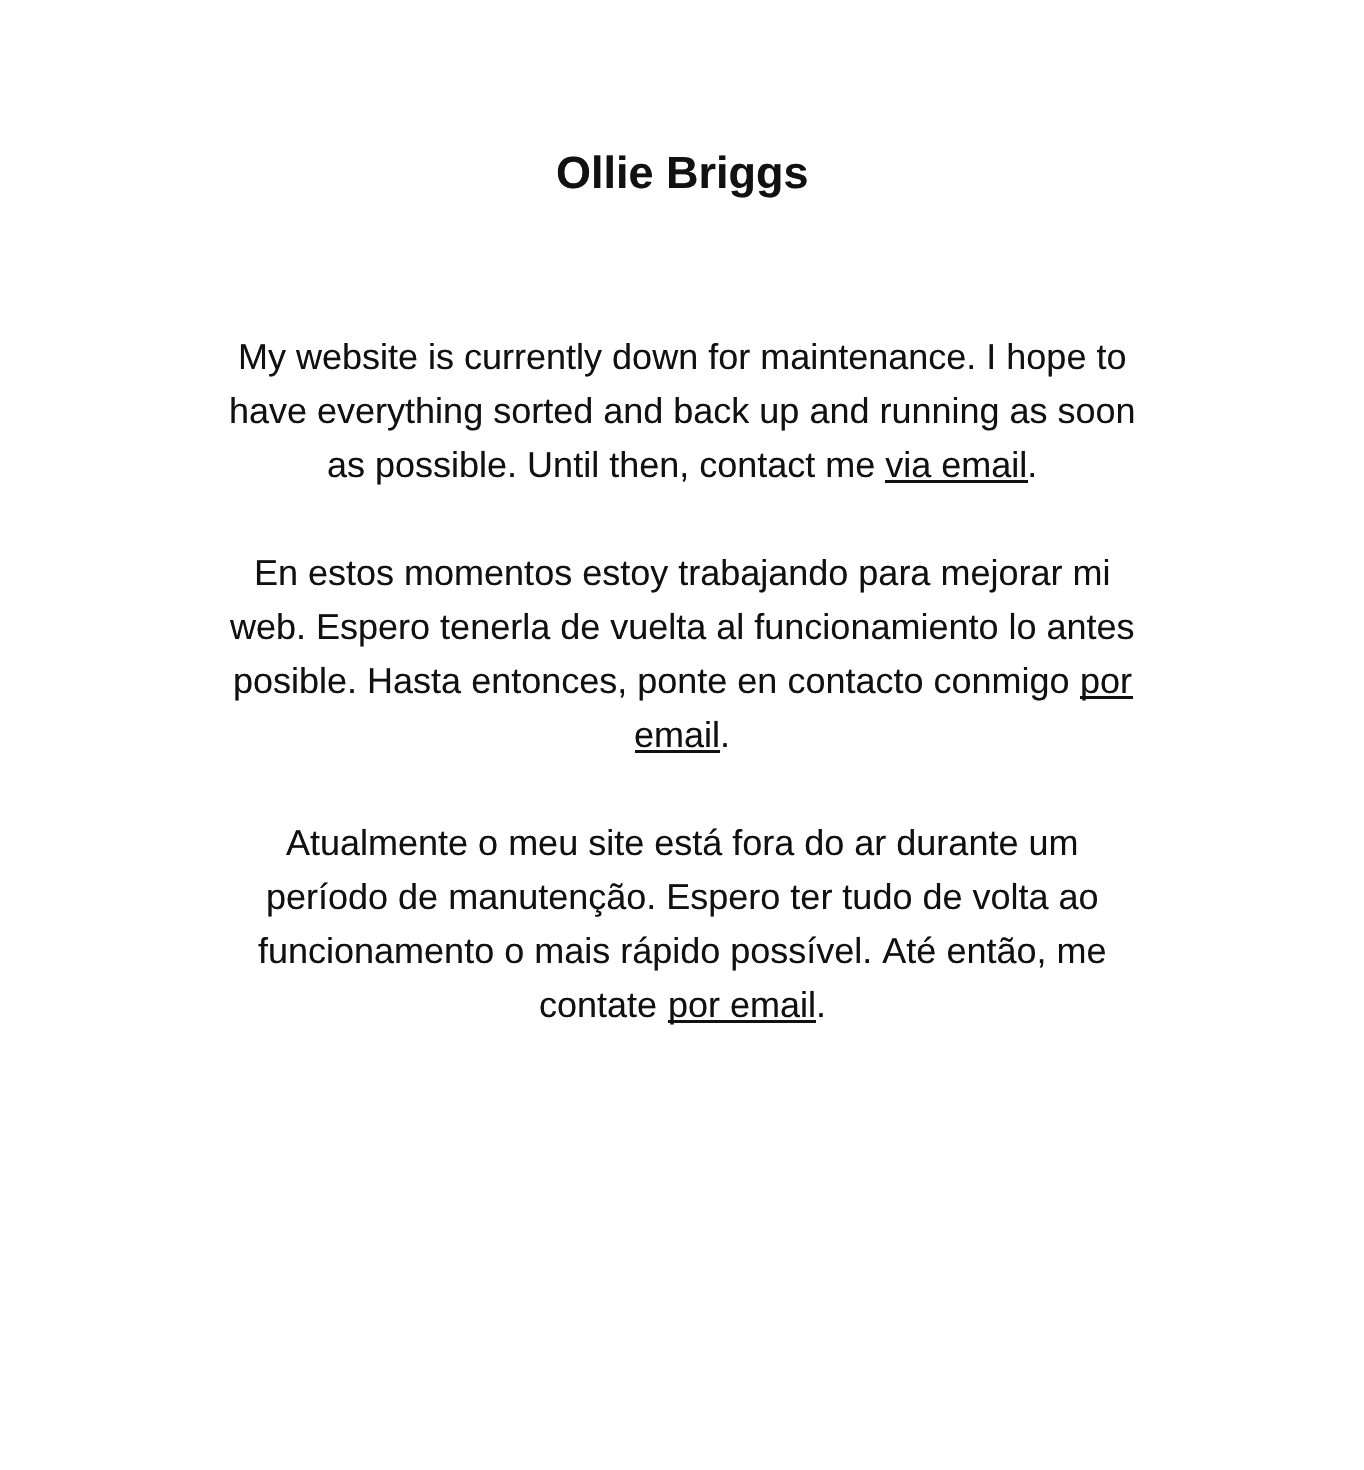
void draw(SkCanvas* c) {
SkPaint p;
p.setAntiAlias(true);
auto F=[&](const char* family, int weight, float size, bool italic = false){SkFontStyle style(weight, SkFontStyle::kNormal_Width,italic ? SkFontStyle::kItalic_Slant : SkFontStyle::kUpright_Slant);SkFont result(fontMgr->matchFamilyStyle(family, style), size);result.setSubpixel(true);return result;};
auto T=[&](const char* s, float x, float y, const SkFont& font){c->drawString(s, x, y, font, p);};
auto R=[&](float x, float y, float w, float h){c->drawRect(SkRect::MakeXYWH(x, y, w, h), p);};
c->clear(0xffffffff);
auto f1 = F("Liberation Sans",700,45);
p.setColor(0xff111111);
T("Ollie Briggs",556,188,f1);
auto f2 = F("Liberation Sans",400,36);
T("My website is currently down for maintenance. I hope to",238,369,f2);
T("have everything sorted and back up and running as soon",229,423,f2);
T("as possible. Until then, contact me via email.",327,477,f2);
R(885,480,143,3);
T("En estos momentos estoy trabajando para mejorar mi",254,585,f2);
T("web. Espero tenerla de vuelta al funcionamiento lo antes",230,639,f2);
T("posible. Hasta entonces, ponte en contacto conmigo",233,693,f2);
R(1080,696,53,3);
T("por",1080,693,f2);
T("email.",634,747,f2);
R(635,750,85,3);
T("Atualmente o meu site está fora do ar durante um",286,855,f2);
T("período de manutenção. Espero ter tudo de volta ao",266,909,f2);
T("funcionamento o mais rápido possível. Até então, me",258,963,f2);
T("contate",539,1017,f2);
R(668,1020,148,3);
T("por email.",668,1017,f2);
}
